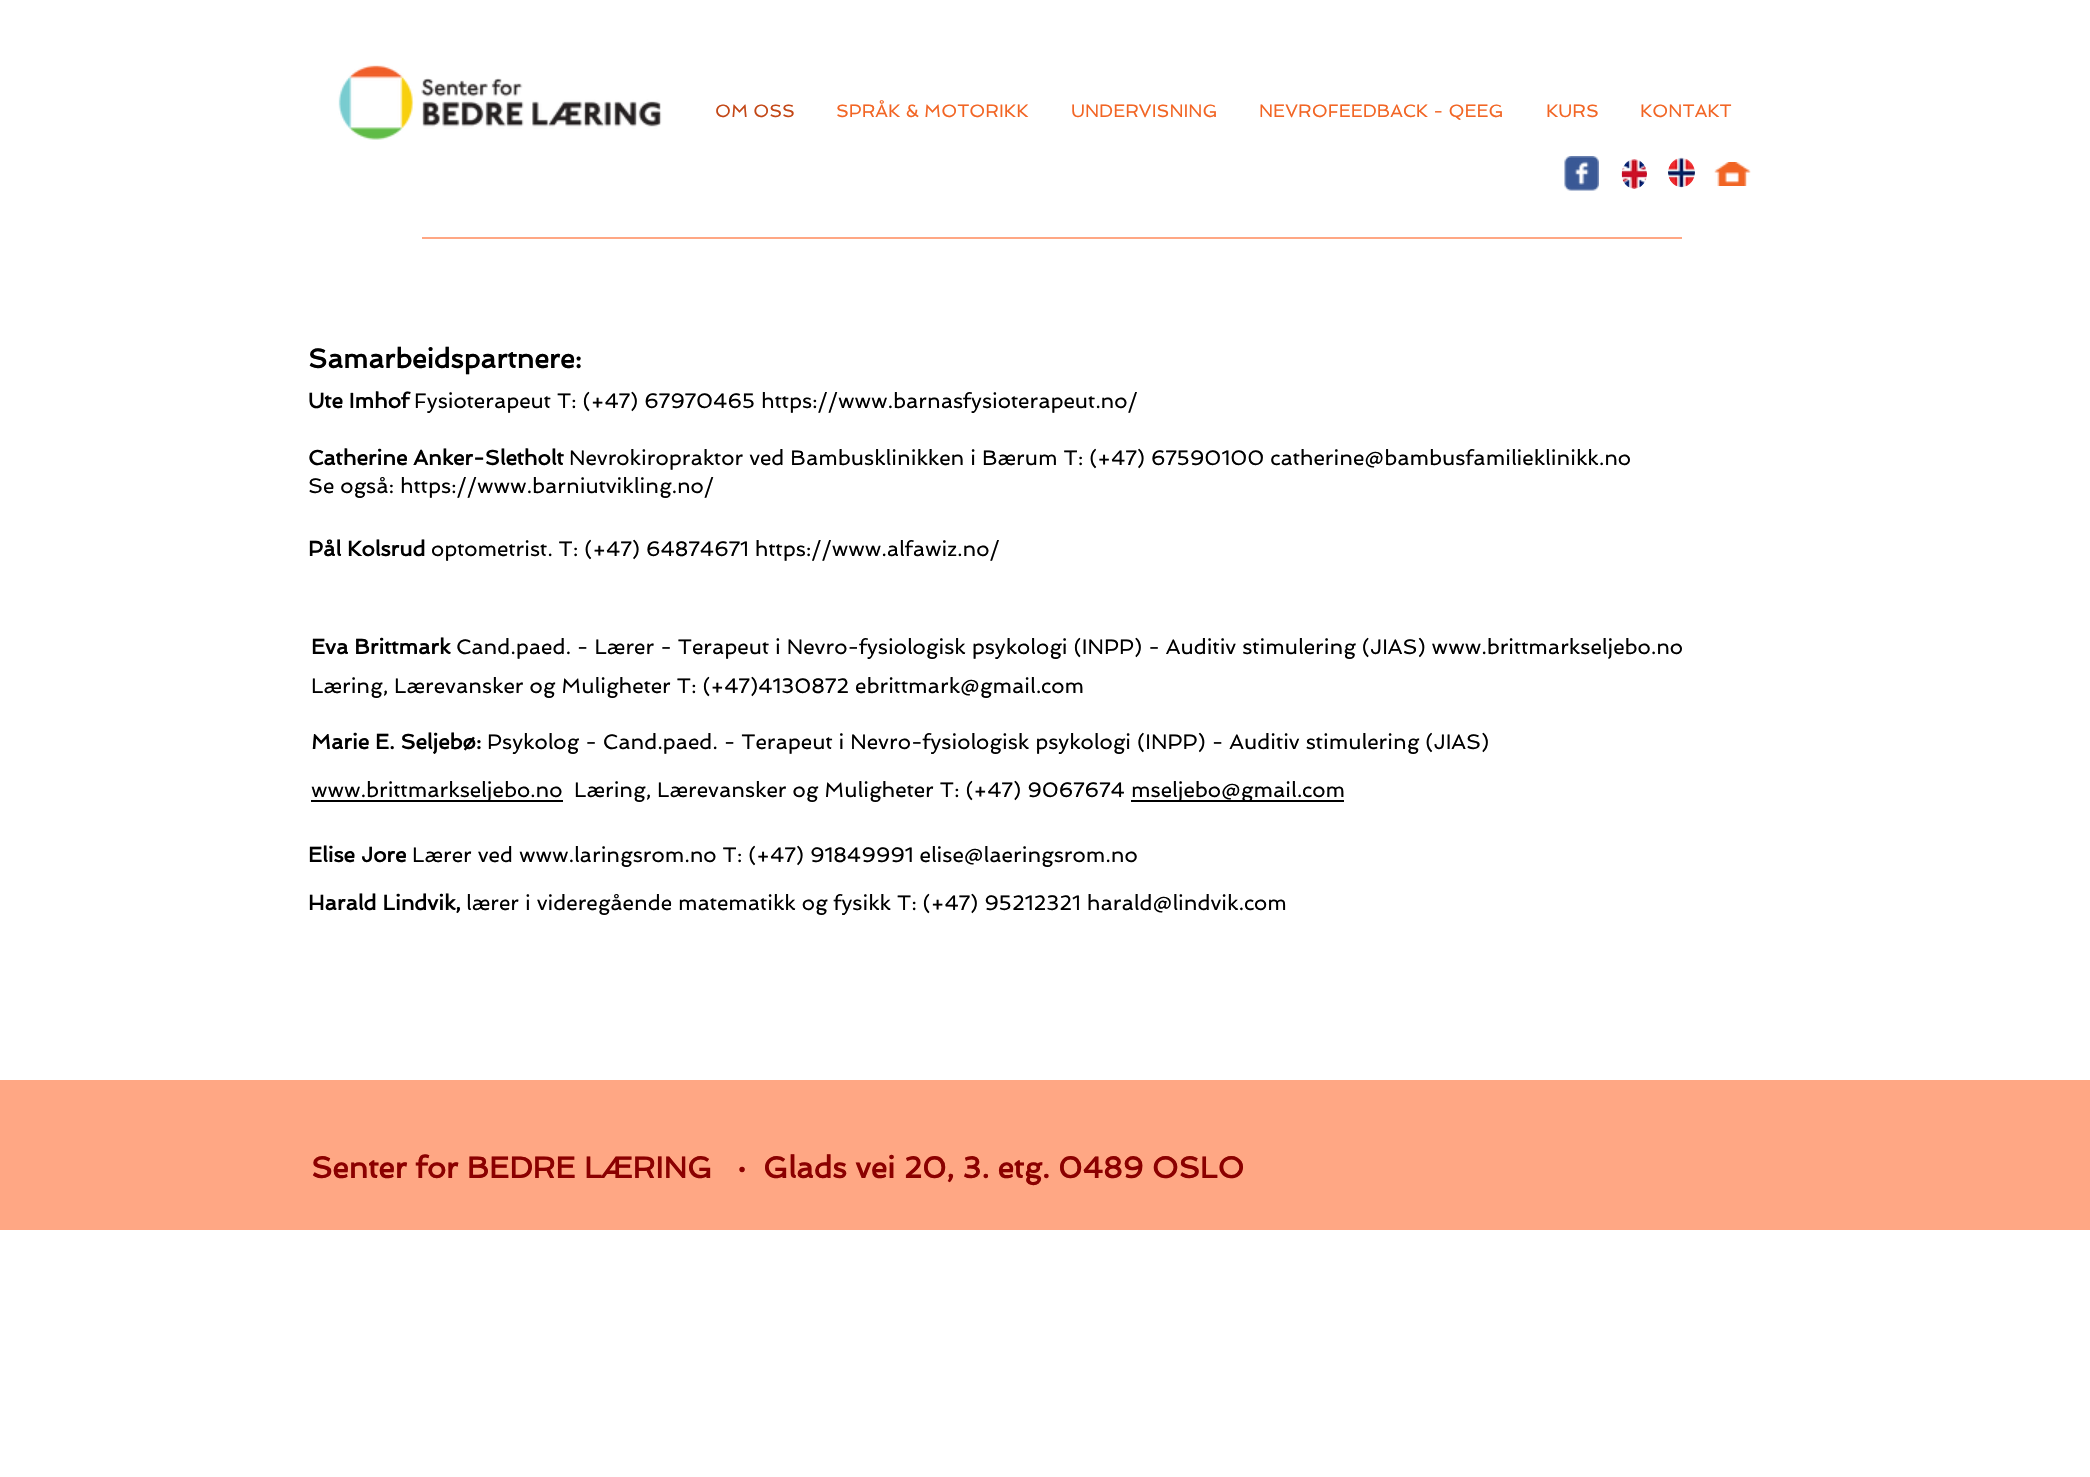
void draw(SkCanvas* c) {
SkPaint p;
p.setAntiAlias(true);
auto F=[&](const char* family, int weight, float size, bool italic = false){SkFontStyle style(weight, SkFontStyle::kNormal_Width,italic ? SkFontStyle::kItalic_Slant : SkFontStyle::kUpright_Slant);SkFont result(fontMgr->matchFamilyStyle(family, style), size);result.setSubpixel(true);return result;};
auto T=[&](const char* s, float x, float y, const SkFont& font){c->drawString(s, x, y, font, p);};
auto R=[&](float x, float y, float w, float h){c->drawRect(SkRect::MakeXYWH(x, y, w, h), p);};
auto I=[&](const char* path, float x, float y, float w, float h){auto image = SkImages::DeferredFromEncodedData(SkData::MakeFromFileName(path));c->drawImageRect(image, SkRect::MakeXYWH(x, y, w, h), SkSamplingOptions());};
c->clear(0xffffffff);
I("1.png",338,65,324,75);
auto f1 = F("Spinnaker",400,18);
p.setColor(0xffc34716);
T("OM OSS",715,117,f1);
p.setColor(0xfff26524);
T("SPRÅK & MOTORIKK",836,117,f1);
T("UNDERVISNING",1071,117,f1);
T("NEVROFEEDBACK - QEEG",1259,117,f1);
T("KURS",1546,117,f1);
T("KONTAKT",1640,117,f1);
I("2.png",1564,156,35,35);
I("3.png",1621,159,26,30);
I("4.png",1668,157,27,31);
I("5.png",1714,162,37,24);
p.setColor(0xffffa784);
R(422,237,1260,2);
auto f2 = F("Spinnaker",700,27);
p.setColor(0xff000000);
T("Samarbeidspartnere:",308,368,f2);
auto f3 = F("Spinnaker",700,21);
T("Ute Imhof",308,408,f3);
auto f4 = F("Spinnaker",400,21);
T("Fysioterapeut T: (+47) 67970465 https://www.barnasfysioterapeut.no/",414,408,f4);
T("Catherine Anker-Sletholt",308,465,f3);
T("Nevrokiropraktor ved Bambusklinikken i Bærum T: (+47) 67590100 catherine@bambusfamilieklinikk.no",569,465,f4);
T("Se også: https://www.barniutvikling.no/",308,493,f4);
T("Pål Kolsrud",308,556,f3);
T("optometrist. T: (+47) 64874671 https://www.alfawiz.no/",431,556,f4);
T("Eva Brittmark",311,654,f3);
T("Cand.paed. - Lærer - Terapeut i Nevro-fysiologisk psykologi (INPP) - Auditiv stimulering (JIAS) www.brittmarkseljebo.no",456,654,f4);
T("Læring, Lærevansker og Muligheter T: (+47)4130872 ebrittmark@gmail.com",311,693,f4);
T("Marie E. Seljebø:",311,749,f3);
T("Psykolog - Cand.paed. - Terapeut i Nevro-fysiologisk psykologi (INPP) - Auditiv stimulering (JIAS)",487,749,f4);
R(311,800,252,2);
T("www.brittmarkseljebo.no",311,797,f4);
T("Læring, Lærevansker og Muligheter T: (+47) 9067674",574,797,f4);
R(1131,800,213,2);
T("mseljebo@gmail.com",1131,797,f4);
T("Elise Jore",308,862,f3);
T("Lærer ved www.laringsrom.no T: (+47) 91849991 elise@laeringsrom.no",412,862,f4);
T("Harald Lindvik,",308,910,f3);
T("lærer i videregående matematikk og fysikk T: (+47) 95212321 harald@lindvik.com",466,910,f4);
p.setColor(0xffffa784);
R(0,1080,2090,150);
auto f5 = F("Spinnaker",700,30);
p.setColor(0xff8b0000);
T("Senter for BEDRE LÆRING   ·  Glads vei 20, 3. etg. 0489 OSLO",311,1178,f5);
}
